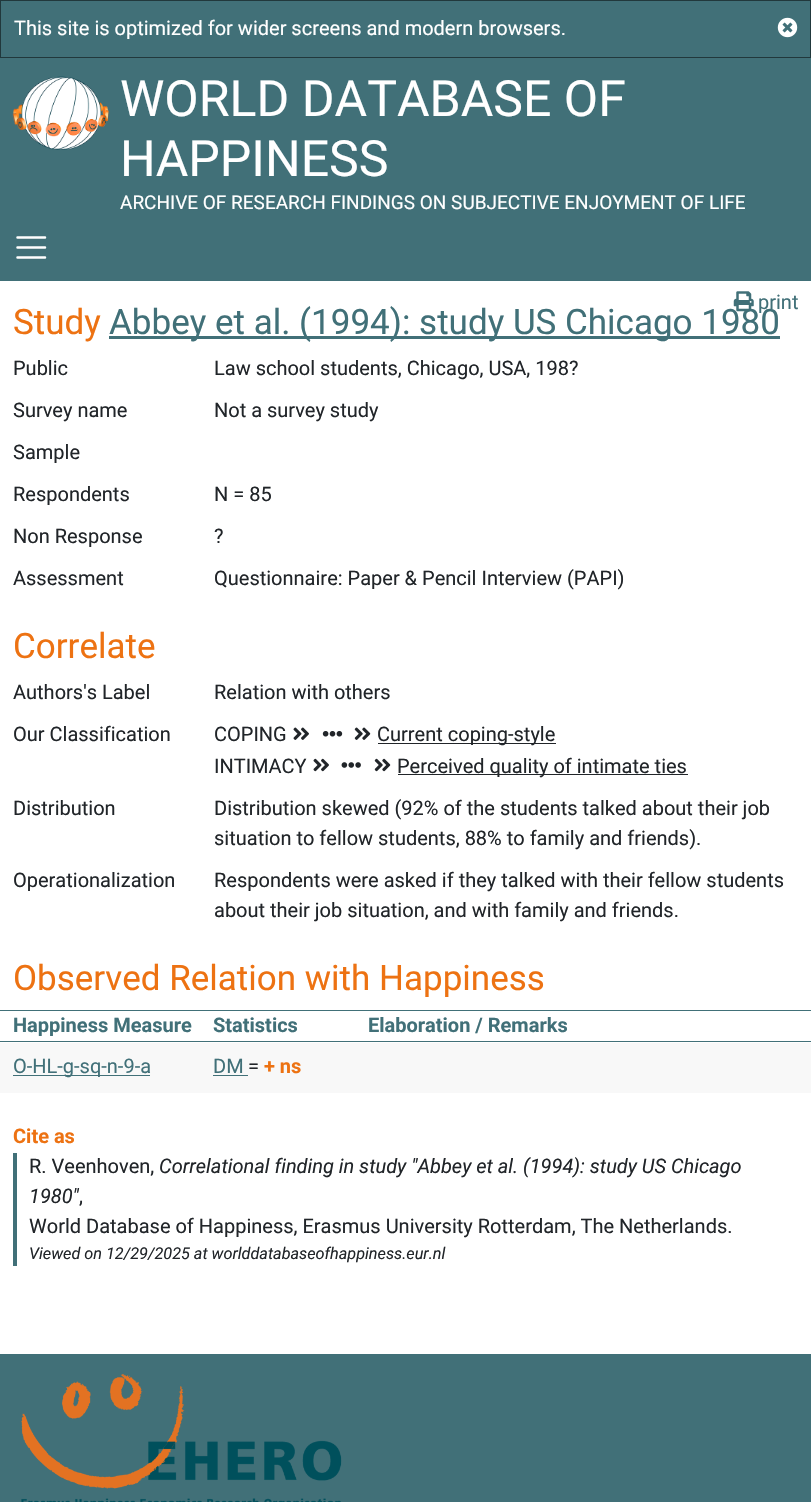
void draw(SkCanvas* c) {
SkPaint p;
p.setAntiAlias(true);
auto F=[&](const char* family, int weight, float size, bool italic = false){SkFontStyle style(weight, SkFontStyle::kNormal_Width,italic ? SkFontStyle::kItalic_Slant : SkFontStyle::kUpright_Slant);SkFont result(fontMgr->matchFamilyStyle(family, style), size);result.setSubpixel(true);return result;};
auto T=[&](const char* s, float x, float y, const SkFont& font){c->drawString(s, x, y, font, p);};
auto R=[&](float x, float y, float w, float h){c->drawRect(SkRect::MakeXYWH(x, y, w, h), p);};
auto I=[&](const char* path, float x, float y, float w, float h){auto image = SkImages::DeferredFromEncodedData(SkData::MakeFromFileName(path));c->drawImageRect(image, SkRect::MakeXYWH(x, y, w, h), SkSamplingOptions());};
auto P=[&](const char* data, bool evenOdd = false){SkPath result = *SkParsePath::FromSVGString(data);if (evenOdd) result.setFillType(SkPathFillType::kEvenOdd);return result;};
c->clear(0xffffffff);
p.setColor(0xff417078);
c->drawRect(SkRect::MakeXYWH(.5,.5,810,57),p);
p.setStroke(true);
p.setStrokeWidth(1);
p.setColor(0xff21383c);
c->drawRect(SkRect::MakeXYWH(.5,.5,810,57),p);
auto f1 = F("Roboto",400,20);
p.setStroke(false);
p.setColor(0xffffffff);
T("This site is optimized for wider screens and modern browsers.",14,35,f1);
I("1.png",777,17,21,21);
p.setColor(0xff417078);
R(0,58,811,223);
I("2.png",12,76,97,74);
auto f2 = F("Roboto",400,50);
p.setColor(0xffffffff);
T("WORLD DATABASE OF",120,116,f2);
T("HAPPINESS",120,176,f2);
auto f3 = F("Roboto",400,19);
T("ARCHIVE OF RESEARCH FINDINGS ON SUBJECTIVE ENJOYMENT OF LIFE",120,209,f3);
p.setStroke(true);
p.setStrokeWidth(2.5);
p.setStrokeCap(SkPaint::kRound_Cap);
c->drawPath(P("M17.5 237.5h27.5m-27.5 10h27.5m-27.5 10h27.5"),p);
p.setStroke(false);
p.setColor(0xff417078);
R(109,336,671,3);
auto f4 = F("Roboto",400,35);
T("Abbey et al. (1994): study US Chicago 1980",109,334,f4);
I("3.png",733,291,21,21);
T("print",758,309,f1);
p.setColor(0xffed7212);
T("Study",13,334,f4);
p.setColor(0xff212529);
T("Public",13,375,f1);
T("Law school students, Chicago, USA, 198?",214,375,f1);
T("Survey name",13,417,f1);
T("Not a survey study",214,417,f1);
T("Sample",13,459,f1);
T("Respondents",13,501,f1);
T("N = 85",214,501,f1);
T("Non Response",13,543,f1);
T("?",214,543,f1);
T("Assessment",13,585,f1);
T("Questionnaire: Paper & Pencil Interview (PAPI)",214,585,f1);
p.setColor(0xffed7212);
T("Correlate",13,658,f4);
p.setColor(0xff212529);
T("Authors's Label",13,699,f1);
T("Relation with others",214,699,f1);
T("Our Classification",13,741,f1);
T("COPING",214,741,f1);
I("4.png",293,727,16,13);
I("5.png",322,731,21,6);
I("6.png",354,727,17,13);
R(378,743,178,1);
T("Current coping-style",377,741,f1);
T("INTIMACY",214,773,f1);
I("7.png",313,758,16,14);
I("8.png",341,762,20,6);
I("9.png",374,758,17,14);
R(398,774,290,1);
T("Perceived quality of intimate ties",397,773,f1);
T("Distribution",13,815,f1);
T("Distribution skewed (92% of the students talked about their job",214,815,f1);
T("situation to fellow students, 88% to family and friends).",214,845,f1);
T("Operationalization",13,887,f1);
T("Respondents were asked if they talked with their fellow students",214,887,f1);
T("about their job situation, and with family and friends.",214,917,f1);
p.setColor(0xffed7212);
T("Observed Relation with Happiness",13,990,f4);
p.setColor(0xff417078);
R(0,1010,811,1);
R(0,1041,811,1);
auto f5 = F("Roboto",700,20);
T("Happiness Measure",13,1032,f5);
T("Statistics",213,1032,f5);
T("Elaboration / Remarks",368,1032,f5);
p.setColor(0xfff8f8f8);
R(0,1043,811,50);
p.setColor(0xff417078);
R(13,1075,137,1);
T("O-HL-g-sq-n-9-a",13,1073,f1);
T("DM",213,1073,f1);
R(213,1075,35,1);
p.setColor(0xff212529);
T("=",248,1073,f1);
p.setColor(0xffed7212);
T("+ ns",264,1073,f5);
T("Cite as",13,1143,f5);
p.setColor(0xff417078);
R(13,1153,4,113);
p.setColor(0xff212529);
T("R. Veenhoven,",29,1173,f1);
auto f6 = F("Roboto",400,20,true);
T("Correlational finding in study \"Abbey et al. (1994): study US Chicago",159,1173,f6);
T("1980\"",29,1203,f6);
T(",",79,1203,f1);
T("World Database of Happiness, Erasmus University Rotterdam, The Netherlands.",29,1233,f1);
auto f7 = F("Roboto",400,16.25,true);
T("Viewed on 12/29/2025 at worlddatabaseofhappiness.eur.nl",29,1259,f7);
p.setColor(0xff417078);
R(0,1354,811,148);
I("10.png",21,1374,321,128);
}
